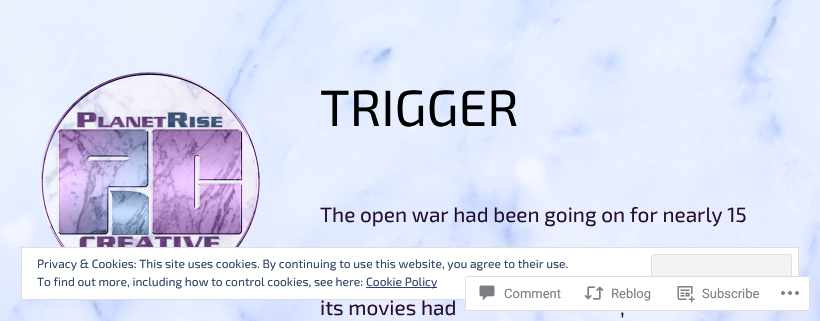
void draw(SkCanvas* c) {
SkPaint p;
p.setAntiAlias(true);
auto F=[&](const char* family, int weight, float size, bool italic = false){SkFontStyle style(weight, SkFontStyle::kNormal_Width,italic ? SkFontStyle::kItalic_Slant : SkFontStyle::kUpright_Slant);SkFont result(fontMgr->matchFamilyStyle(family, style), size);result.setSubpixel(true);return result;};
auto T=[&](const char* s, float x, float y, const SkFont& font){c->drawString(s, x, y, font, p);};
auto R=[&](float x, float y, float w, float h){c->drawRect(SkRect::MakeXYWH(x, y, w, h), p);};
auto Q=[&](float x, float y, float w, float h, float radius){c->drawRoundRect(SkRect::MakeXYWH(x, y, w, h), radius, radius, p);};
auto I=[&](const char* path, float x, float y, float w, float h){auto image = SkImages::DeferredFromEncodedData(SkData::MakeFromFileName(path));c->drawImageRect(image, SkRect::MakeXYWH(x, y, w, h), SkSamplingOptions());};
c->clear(0xffffffff);
I("1.png",0,0,820,321);
I("2.png",40,72,220,175);
auto f1 = F("Exo 2",400,51);
p.setColor(0xff000000);
T("TRIGGER",320,126,f1);
auto f2 = F("Exo 2",400,20.8);
p.setColor(0xff260e2e);
T("The open war had been going on for nearly 15",320,222,f2);
T("its movies had",320,315,f2);
T(",",620,315,f2);
p.setColor(0xffffffff);
c->drawRect(SkRect::MakeXYWH(21.5,247.5,777,52),p);
p.setStroke(true);
p.setStrokeWidth(1);
p.setColor(0xffdedede);
c->drawRect(SkRect::MakeXYWH(21.5,247.5,777,52),p);
auto f3 = F("Exo 2",400,12);
p.setStroke(false);
p.setColor(0xff2e4467);
T("Privacy & Cookies: This site uses cookies. By continuing to use this website, you agree to their use.",37,268,f3);
p.setColor(0xfff3f3f3);
c->drawRoundRect(SkRect::MakeXYWH(651.5,254.5,140,38),2.5,2.5,p);
p.setStroke(true);
p.setColor(0xffdedede);
c->drawRoundRect(SkRect::MakeXYWH(651.5,254.5,140,38),2.5,2.5,p);
p.setStroke(false);
p.setColor(0xff2e4467);
T("To find out more, including how to control cookies, see here:",37,286,f3);
R(366,287,71,1);
T("Cookie Policy",366,286,f3);
p.setColor(0xfaffffff);
Q(465,276,345,35,3);
p.setStroke(true);
p.setColor(0xfadcdcde);
c->drawRoundRect(SkRect::MakeXYWH(465.5,276.5,344,34),2.5,2.5,p);
I("3.png",479,285,16,16);
auto f4 = F("Roboto",400,13);
p.setStroke(false);
p.setColor(0xff7b7f85);
T("Comment",504,298,f4);
I("4.png",584,286,20,14);
T("Reblog",611,298,f4);
I("5.png",677,286,18,17);
T("Subscribe",702,298,f4);
I("6.png",781,291,18,4);
}
